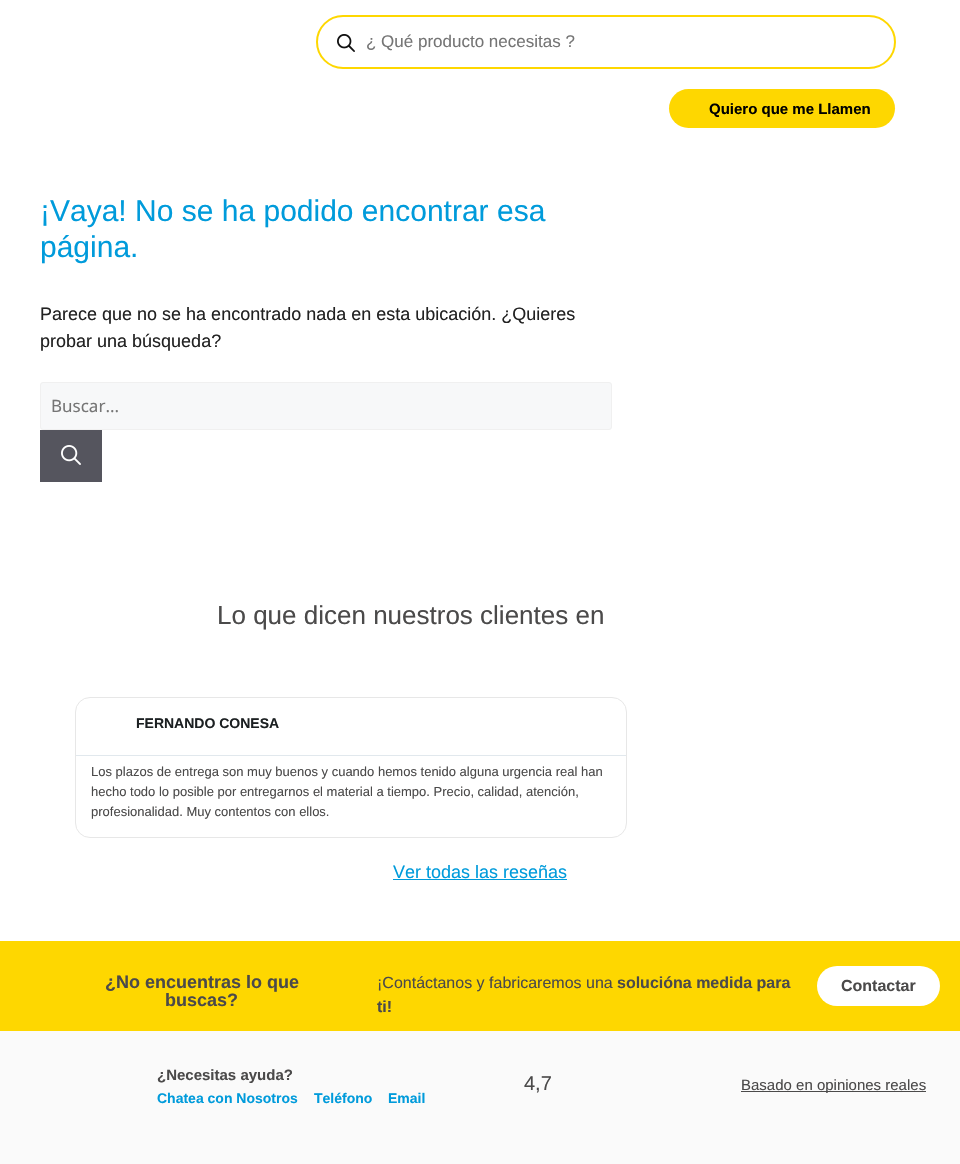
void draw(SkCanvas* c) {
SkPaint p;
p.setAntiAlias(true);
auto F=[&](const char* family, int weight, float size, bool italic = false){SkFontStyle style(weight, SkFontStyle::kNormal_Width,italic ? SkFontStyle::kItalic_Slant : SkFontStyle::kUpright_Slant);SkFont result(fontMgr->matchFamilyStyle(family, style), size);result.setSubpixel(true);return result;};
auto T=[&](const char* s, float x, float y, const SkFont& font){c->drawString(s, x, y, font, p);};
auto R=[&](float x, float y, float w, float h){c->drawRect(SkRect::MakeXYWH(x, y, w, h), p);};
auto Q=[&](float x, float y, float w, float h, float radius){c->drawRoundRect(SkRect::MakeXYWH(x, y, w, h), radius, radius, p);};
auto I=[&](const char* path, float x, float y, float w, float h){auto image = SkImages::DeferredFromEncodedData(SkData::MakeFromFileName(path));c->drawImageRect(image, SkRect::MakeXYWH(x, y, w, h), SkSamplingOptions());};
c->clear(0xffffffff);
p.setStroke(true);
p.setStrokeWidth(2);
p.setColor(0xfffed700);
c->drawRoundRect(SkRect::MakeXYWH(317,16,578,52),26,26,p);
I("1.png",337,34,18,18);
auto f1 = F("Liberation Sans",400,17);
p.setStroke(false);
p.setColor(0xff757575);
T("¿ Qué producto necesitas ?",366,47,f1);
p.setColor(0xfffed700);
Q(669,89,226,39,19.5);
auto f2 = F("Liberation Sans",700,15);
p.setColor(0xff000000);
T("Quiero que me Llamen",709,114,f2);
auto f3 = F("Liberation Sans",400,30);
p.setColor(0xff009bdb);
T("¡Vaya! No se ha podido encontrar esa",40,221,f3);
T("página.",40,257,f3);
auto f4 = F("Liberation Sans",400,18);
p.setColor(0xff222222);
T("Parece que no se ha encontrado nada en esta ubicación. ¿Quieres",40,320,f4);
T("probar una búsqueda?",40,347,f4);
p.setColor(0xfff7f8f9);
c->drawRoundRect(SkRect::MakeXYWH(40.5,382.5,571,47),2.5,2.5,p);
p.setStroke(true);
p.setStrokeWidth(1);
p.setColor(0xfff0f0f0);
c->drawRoundRect(SkRect::MakeXYWH(40.5,382.5,571,47),2.5,2.5,p);
auto f5 = F("Noto Sans",400,17);
p.setStroke(false);
p.setColor(0xff757575);
T("Buscar...",51,412,f5);
p.setColor(0xff55555e);
R(40,430,62,52);
I("2.png",61,445,20,20);
auto f6 = F("Liberation Sans",400,26);
p.setColor(0xff4b4a4a);
T("Lo que dicen nuestros clientes en",217,624,f6);
p.setStroke(true);
p.setColor(0xffe7e7e7);
c->drawRoundRect(SkRect::MakeXYWH(75.5,697.5,551,140),14.5,14.5,p);
p.setStroke(false);
p.setColor(0xffe1e8ed);
R(76,755,550,1);
auto f7 = F("Liberation Sans",700,14);
p.setColor(0xff1c2022);
T("FERNANDO CONESA",136,728,f7);
auto f8 = F("Liberation Sans",400,13);
p.setColor(0xff4b4a4a);
T("Los plazos de entrega son muy buenos y cuando hemos tenido alguna urgencia real han",91,776,f8);
T("hecho todo lo posible por entregarnos el material a tiempo. Precio, calidad, atención,",91,796,f8);
T("profesionalidad. Muy contentos con ellos.",91,816,f8);
p.setColor(0xff009bdb);
T("Ver todas las reseñas",393,878,f4);
R(393,879,174,1);
p.setColor(0xfffed700);
R(0,941,960,90);
auto f9 = F("Liberation Sans",700,18);
p.setColor(0xff4b4a4a);
T("¿No encuentras lo que",105,988,f9);
T("buscas?",165,1006,f9);
auto f10 = F("Liberation Sans",400,16);
T("¡Contáctanos y fabricaremos una",377,988,f10);
auto f11 = F("Liberation Sans",700,16);
T("solucióna medida para",617,988,f11);
T("ti!",377,1012,f11);
p.setColor(0xffffffff);
Q(817,966,123,40,20);
p.setColor(0xff4b4a4a);
T("Contactar",841,991,f11);
p.setColor(0xfffafafa);
R(0,1031,960,133);
p.setColor(0xff4b4a4a);
T("¿Necesitas ayuda?",157,1080,f2);
p.setColor(0xff009bdb);
T("Chatea con Nosotros",157,1103,f7);
T("Teléfono",314,1103,f7);
T("Email",388,1103,f7);
auto f12 = F("Liberation Sans",400,20);
p.setColor(0xff4b4a4a);
T("4,7",524,1090,f12);
R(741,1091,185,1);
auto f13 = F("Liberation Sans",400,15);
T("Basado en opiniones reales",741,1090,f13);
}
